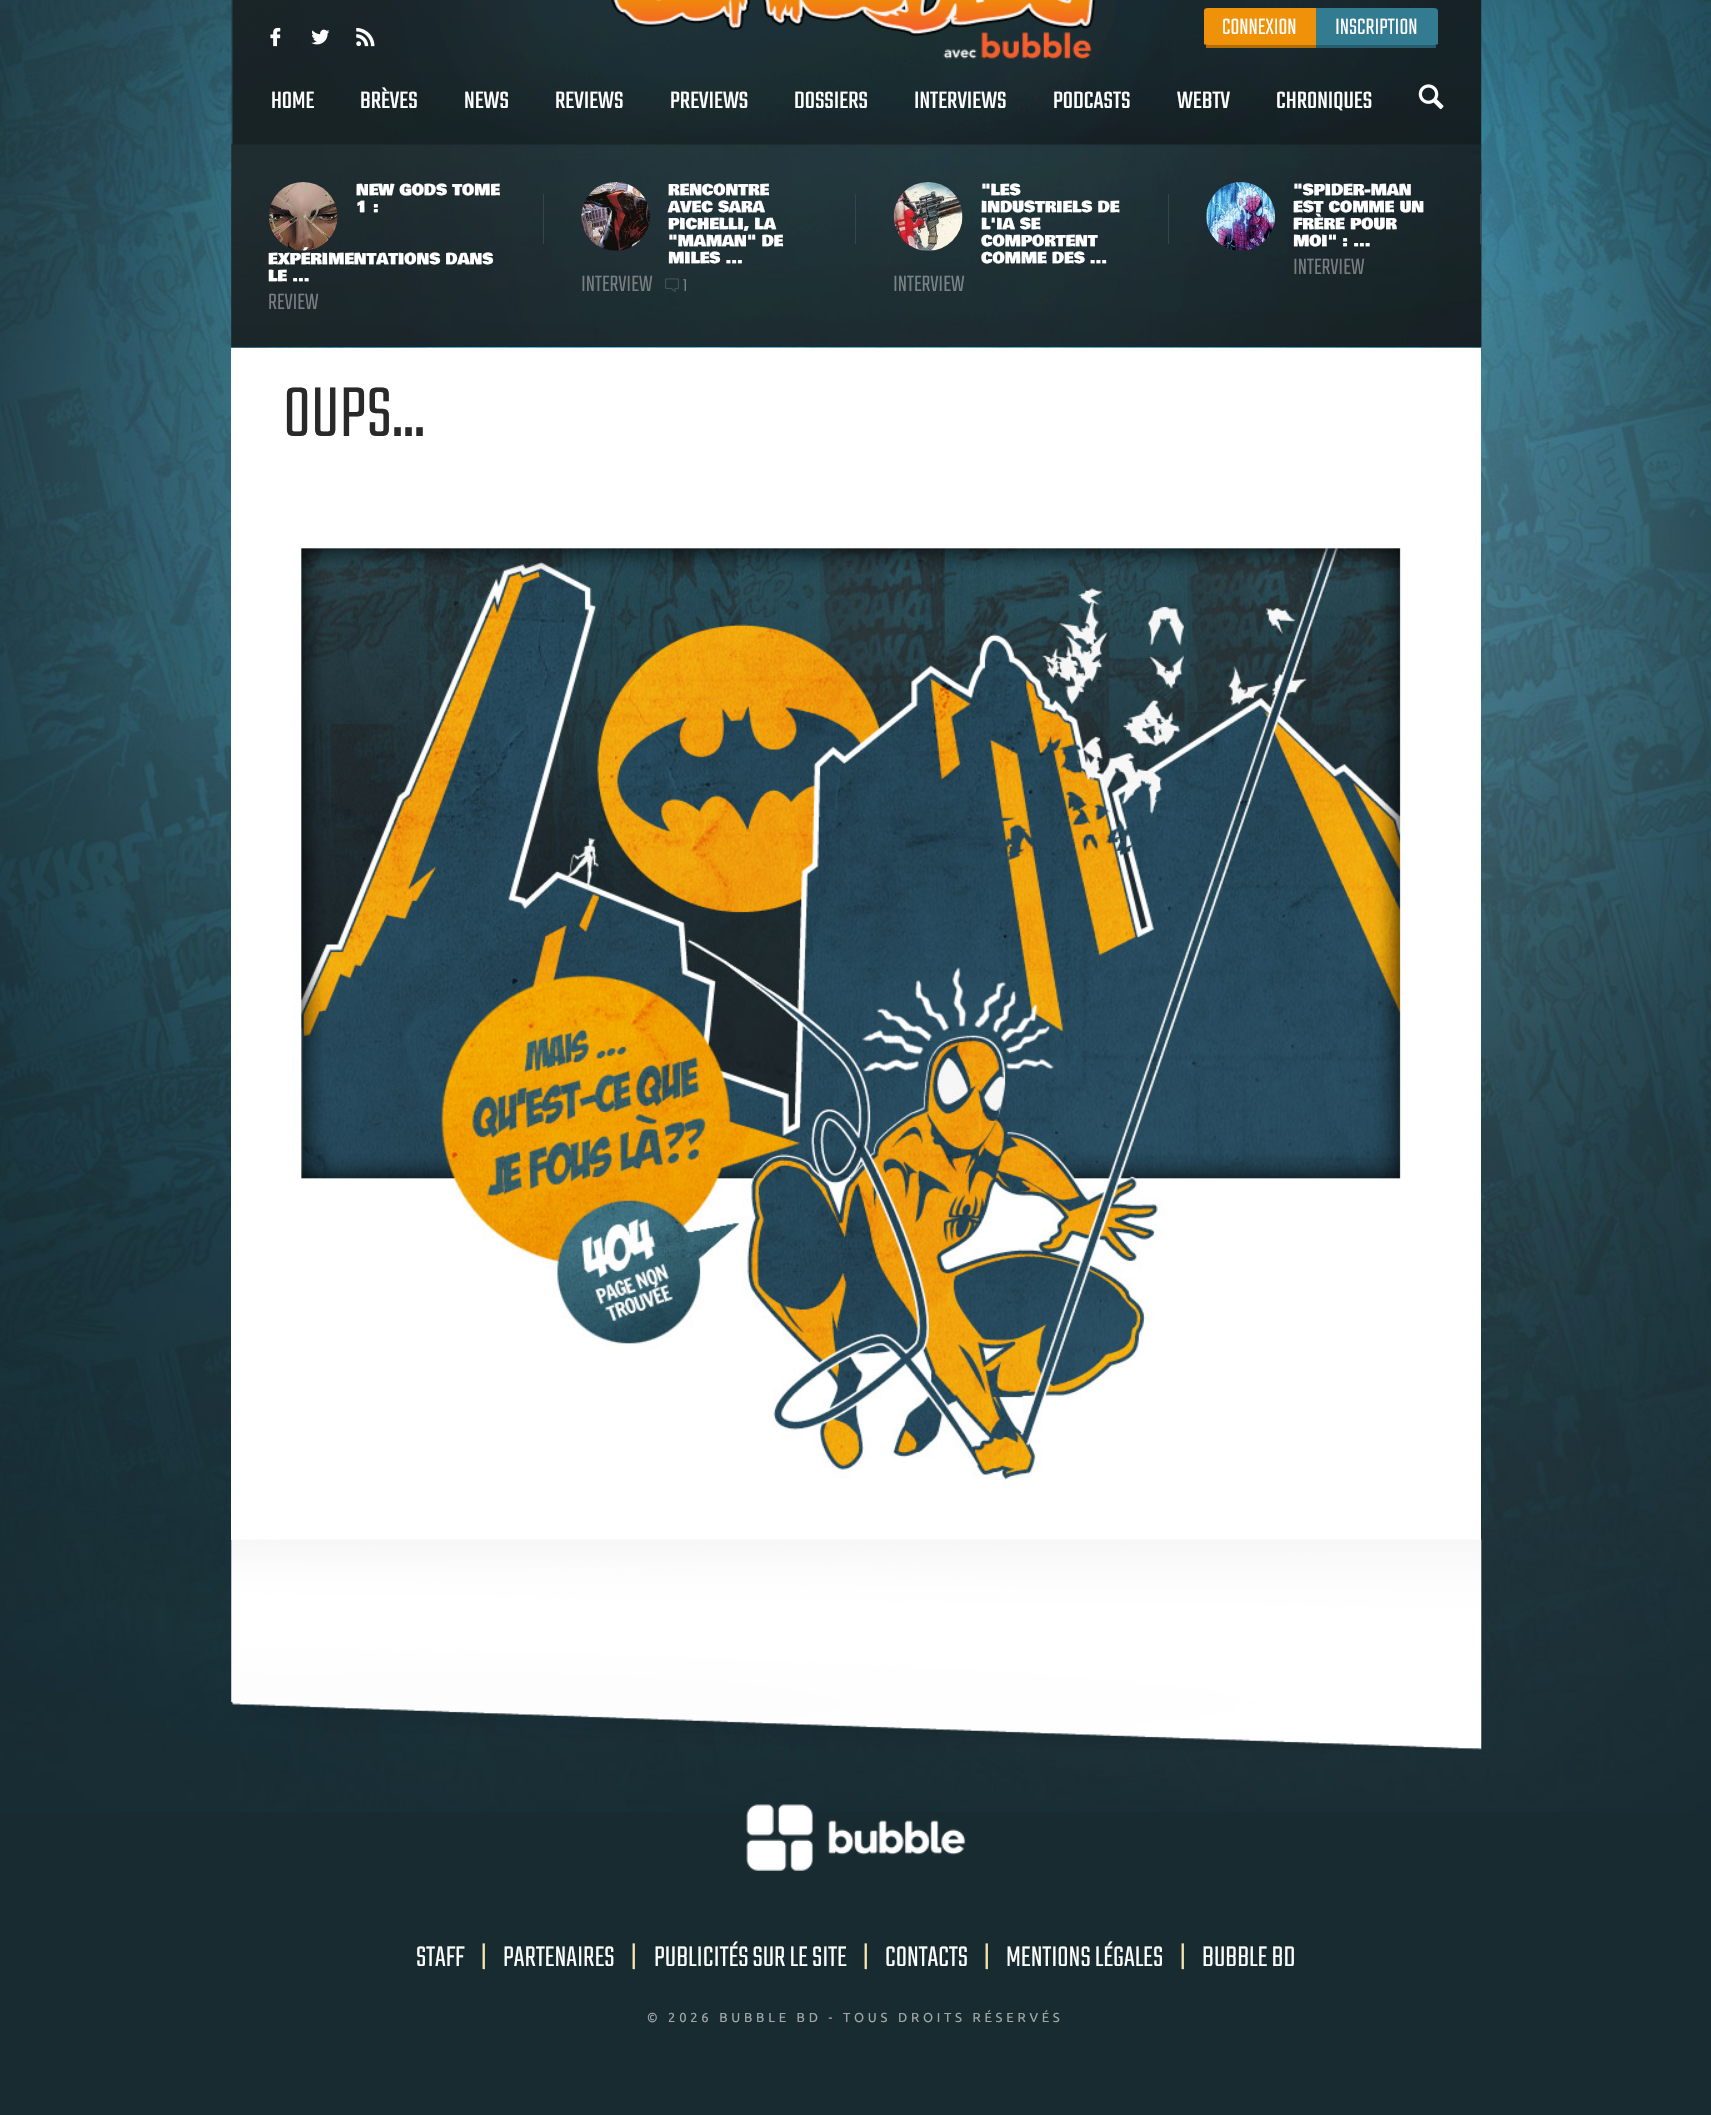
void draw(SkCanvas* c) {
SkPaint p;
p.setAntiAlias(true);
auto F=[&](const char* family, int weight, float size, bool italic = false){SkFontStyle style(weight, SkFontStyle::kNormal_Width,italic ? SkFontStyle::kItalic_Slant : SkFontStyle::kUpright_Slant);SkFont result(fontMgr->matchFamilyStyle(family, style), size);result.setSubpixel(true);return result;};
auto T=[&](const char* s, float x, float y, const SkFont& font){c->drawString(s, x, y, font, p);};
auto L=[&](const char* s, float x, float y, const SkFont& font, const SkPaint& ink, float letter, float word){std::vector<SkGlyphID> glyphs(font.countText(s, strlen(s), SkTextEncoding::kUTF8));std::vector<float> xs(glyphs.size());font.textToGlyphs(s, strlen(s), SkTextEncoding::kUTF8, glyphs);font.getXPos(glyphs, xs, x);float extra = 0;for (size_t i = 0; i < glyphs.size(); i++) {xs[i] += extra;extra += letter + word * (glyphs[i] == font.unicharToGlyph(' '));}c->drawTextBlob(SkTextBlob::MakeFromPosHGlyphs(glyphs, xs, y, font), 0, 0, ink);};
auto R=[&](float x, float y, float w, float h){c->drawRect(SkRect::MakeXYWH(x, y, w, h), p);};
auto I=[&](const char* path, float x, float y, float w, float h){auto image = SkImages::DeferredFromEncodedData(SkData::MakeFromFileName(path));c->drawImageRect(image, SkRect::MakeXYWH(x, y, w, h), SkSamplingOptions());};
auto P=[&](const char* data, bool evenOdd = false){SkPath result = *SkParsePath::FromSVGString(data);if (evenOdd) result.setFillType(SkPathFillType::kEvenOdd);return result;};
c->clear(0xff172b31);
I("1.png",0,0,1711,1812);
I("2.png",231,0,1251,347);
I("3.png",270,27,11,20);
I("4.png",311,29,19,16);
I("5.png",356,27,19,20);
I("6.png",611,0,485,59);
p.setColor(0xffef9209);
c->drawPath(P("M1208 8h108v37h-108c-3 0-4-1-4-1v-33c0-2 1-3 4-3z"),p);
auto f1 = F("Teko",300,24.5);
p.setColor(0xffffffff);
T("CONNEXION",1222,34,f1);
p.setColor(0xffb36d07);
R(1206,45,110,3);
p.setColor(0xff337b90);
c->drawPath(P("M1316 8h118c2 0 4 1 4 3v33c0 0-2 1-4 1h-118z"),p);
p.setColor(0xffffffff);
T("INSCRIPTION",1335,34,f1);
p.setColor(0xff265c6c);
R(1316,45,120,3);
auto f2 = F("Teko",400,26);
p.setColor(0xffffffff);
T("HOME",271,108,f2);
T("BRÈVES",360,108,f2);
T("NEWS",464,108,f2);
T("REVIEWS",555,108,f2);
T("PREVIEWS",670,108,f2);
T("DOSSIERS",794,108,f2);
T("INTERVIEWS",914,108,f2);
T("PODCASTS",1053,108,f2);
T("WEBTV",1177,108,f2);
T("CHRONIQUES",1276,108,f2);
I("7.png",1418,84,26,26);
I("8.png",231,144,1251,203);
I("9.png",269,182,69,69);
auto f3 = F("Bowlby One",400,15.1);
T("NEW GODS TOME",356,195,f3);
T("1 :",356,212,f3);
T("EXPÉRIMENTATIONS DANS",268,264,f3);
T("LE ...",268,281,f3);
p.setColor(0xff777d80);
T("REVIEW",268,309,f1);
p.setColor(0xff374549);
R(543,194,1,50);
I("10.png",581,182,69,69);
p.setColor(0xffffffff);
T("RENCONTRE",668,195,f3);
T("AVEC SARA",668,212,f3);
T("PICHELLI, LA",668,229,f3);
T("\"MAMAN\" DE",668,246,f3);
T("MILES ...",668,263,f3);
p.setColor(0xff777d80);
T("INTERVIEW",581,291,f1);
I("11.png",665,278,14,14);
auto f4 = F("Teko",300,19);
p.setColor(0xff788385);
T("1",683,291,f4);
p.setColor(0xff374549);
R(855,194,1,50);
I("12.png",893,182,70,69);
p.setColor(0xffffffff);
T("\"LES",981,195,f3);
T("INDUSTRIELS DE",981,212,f3);
T("L'IA SE",981,229,f3);
T("COMPORTENT",981,246,f3);
T("COMME DES ...",981,263,f3);
p.setColor(0xff788385);
T("INTERVIEW",893,291,f1);
p.setColor(0xff374549);
R(1168,194,1,50);
I("13.png",1206,182,69,69);
p.setColor(0xffffffff);
T("\"SPIDER-MAN",1293,195,f3);
T("EST COMME UN",1293,212,f3);
T("FRÈRE POUR",1293,229,f3);
T("MOI\" : ...",1293,246,f3);
p.setColor(0xff777d80);
T("INTERVIEW",1293,274,f1);
p.setColor(0xff374549);
R(1480,194,1,50);
p.setColor(0xffffffff);
R(231,348,1250,1192);
auto f5 = F("Teko",300,78);
p.setColor(0xff292929);
T("OUPS...",283,436,f5);
I("14.png",293,548,1110,939);
I("15.png",231,1539,1251,211);
I("16.png",746,1804,220,67);
auto f6 = F("Teko",300,31.25);
p.setColor(0xffffffff);
T("STAFF",416,1966,f6);
p.setColor(0xfff5e2af);
T("|",481,1966,f6);
p.setColor(0xffffffff);
T("PARTENAIRES",503,1966,f6);
p.setColor(0xfff5e2af);
T("|",631,1966,f6);
p.setColor(0xffffffff);
T("PUBLICITÉS SUR LE SITE",654,1966,f6);
p.setColor(0xfff5e2af);
T("|",863,1966,f6);
p.setColor(0xffffffff);
T("CONTACTS",885,1966,f6);
p.setColor(0xfff5e2af);
T("|",984,1966,f6);
p.setColor(0xffffffff);
T("MENTIONS LÉGALES",1006,1966,f6);
p.setColor(0xfff5e2af);
T("|",1180,1966,f6);
p.setColor(0xffffffff);
T("BUBBLE BD",1202,1966,f6);
auto f7 = F("Ubuntu",400,13);
p.setColor(0xffa2a7a9);
L("© 2026 BUBBLE BD - TOUS DROITS RÉSERVÉS",647,2022,f7,p,3.75,0);
}
